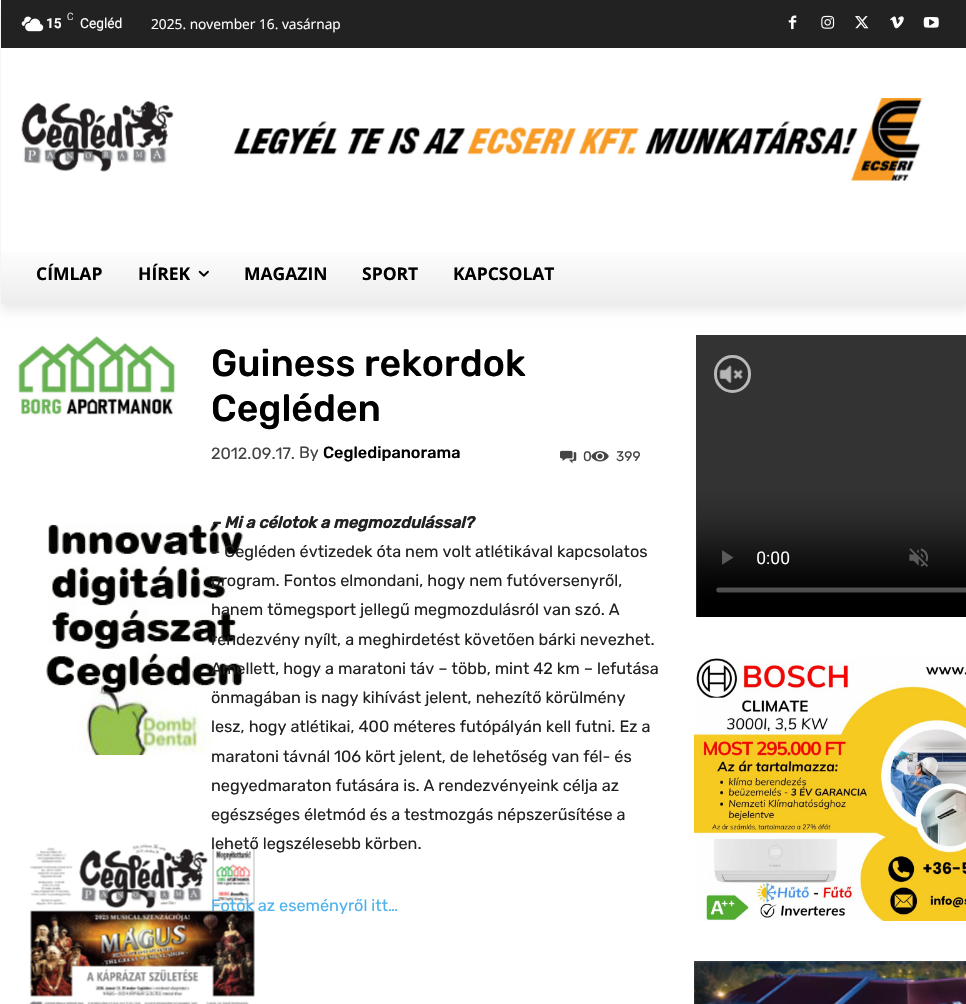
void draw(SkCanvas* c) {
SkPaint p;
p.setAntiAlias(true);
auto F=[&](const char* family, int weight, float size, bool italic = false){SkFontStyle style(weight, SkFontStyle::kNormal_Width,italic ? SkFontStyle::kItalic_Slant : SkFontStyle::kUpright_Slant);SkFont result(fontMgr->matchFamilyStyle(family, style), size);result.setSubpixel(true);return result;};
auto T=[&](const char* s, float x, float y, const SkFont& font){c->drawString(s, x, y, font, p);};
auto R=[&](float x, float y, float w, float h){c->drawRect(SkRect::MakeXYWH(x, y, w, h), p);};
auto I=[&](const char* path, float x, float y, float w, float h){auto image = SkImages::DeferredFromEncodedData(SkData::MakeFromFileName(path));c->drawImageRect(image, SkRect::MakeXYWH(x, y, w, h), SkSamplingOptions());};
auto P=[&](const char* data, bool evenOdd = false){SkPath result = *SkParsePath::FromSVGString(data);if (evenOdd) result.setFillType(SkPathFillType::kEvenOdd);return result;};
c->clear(0xffffffff);
p.setColor(0xff222222);
R(1,0,965,48);
I("1.png",21,16,23,16);
I("2.png",788,15,9,15);
I("3.png",821,15,14,14);
I("4.png",855,16,14,13);
I("5.png",890,16,14,13);
I("6.png",923,17,16,11);
I("7.png",21,100,153,72);
I("8.png",233,98,690,83);
{
const SkColor colors[] = {0xffffffff,0xffededed};
const float stops[] = {0,1};
const SkPoint ends[] = {{484,244}, {484,304}};
p.setShader(SkGradientShader::MakeLinear(ends, colors, stops, 2, SkTileMode::kClamp));
p.setAlpha(255);
}
R(1,252,965,52);
c->save();
c->clipPath(P("M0 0h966v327h-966zm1 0h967v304h-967z",true),true);
p.setShader(nullptr);
p.setColor(0x14000000);
p.setMaskFilter(SkMaskFilter::MakeBlur(kNormal_SkBlurStyle, 5));
c->drawRect(SkRect::MakeXYWH(1,8,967,303),p);
p.setMaskFilter(nullptr);
c->restore();
auto f1 = F("Roboto",300,10);
p.setColor(0xffffffff);
T("C",67,20,f1);
auto f2 = F("Roboto",600,13.75);
T("15",46,28,f2);
auto f3 = F("Roboto",400,13.75);
T("Cegléd",80,28,f3);
auto f4 = F("Open Sans",400,13.75);
T("2025. november 16. vasárnap",151,29,f4);
auto f5 = F("Open Sans",700,17.5);
p.setColor(0xff000000);
T("CÍMLAP",36,280,f5);
T("HÍREK",138,280,f5);
I("9.png",198,270,11,7);
T("MAGAZIN",244,280,f5);
T("SPORT",362,280,f5);
T("KAPCSOLAT",453,280,f5);
I("10.png",17,336,159,79);
I("11.png",46,522,198,233);
I("12.png",29,844,226,160);
auto f6 = F("Rubik",500,37.5);
T("Guiness rekordok",211,376,f6);
T("Cegléden",211,421,f6);
auto f7 = F("Rubik",400,16.25);
p.setColor(0xff444444);
T("2012.09.17.",211,459,f7);
T("By",299,458,f7);
auto f8 = F("Rubik",500,16.25);
p.setColor(0xff000000);
T("Cegledipanorama",323,458,f8);
I("13.png",560,450,17,14);
auto f9 = F("Rubik",400,13.75);
p.setColor(0xff444444);
T("0",583,461,f9);
I("14.png",591,451,18,11);
T("399",616,461,f9);
auto f10 = F("Rubik",700,16.25,true);
p.setColor(0xff222222);
T("– Mi a célotok a megmozdulással?",211,528,f10);
T("– Cegléden évtizedek óta nem volt atlétikával kapcsolatos",211,557,f7);
T("program. Fontos elmondani, hogy nem futóversenyről,",211,586,f7);
T("hanem tömegsport jellegű megmozdulásról van szó. A",211,615,f7);
T("rendezvény nyílt, a meghirdetést követően bárki nevezhet.",211,645,f7);
T("Amellett, hogy a maratoni táv – több, mint 42 km – lefutása",211,674,f7);
T("önmagában is nagy kihívást jelent, nehezítő körülmény",211,703,f7);
T("lesz, hogy atlétikai, 400 méteres futópályán kell futni. Ez a",211,732,f7);
T("maratoni távnál 106 kört jelent, de lehetőség van fél- és",211,762,f7);
T("negyedmaraton futására is. A rendezvényeink célja az",211,791,f7);
T("egészséges életmód és a testmozgás népszerűsítése a",211,820,f7);
T("lehető legszélesebb körben.",211,849,f7);
p.setColor(0xff4db2ec);
T("Fotók az eseményről itt…",211,911,f7);
I("15.png",696,335,270,282);
p.setColor(0x40121212);
c->drawRoundRect(SkRect::MakeXYWH(715.5,356.5,34,35),17,17,p);
p.setStroke(true);
p.setStrokeWidth(3);
p.setColor(0xffb8b8b8);
c->drawRoundRect(SkRect::MakeXYWH(715.5,356.5,34,35),17,17,p);
I("16.png",719,365,24,18);
I("17.png",694,658,272,263);
I("18.png",694,961,272,43);
}
